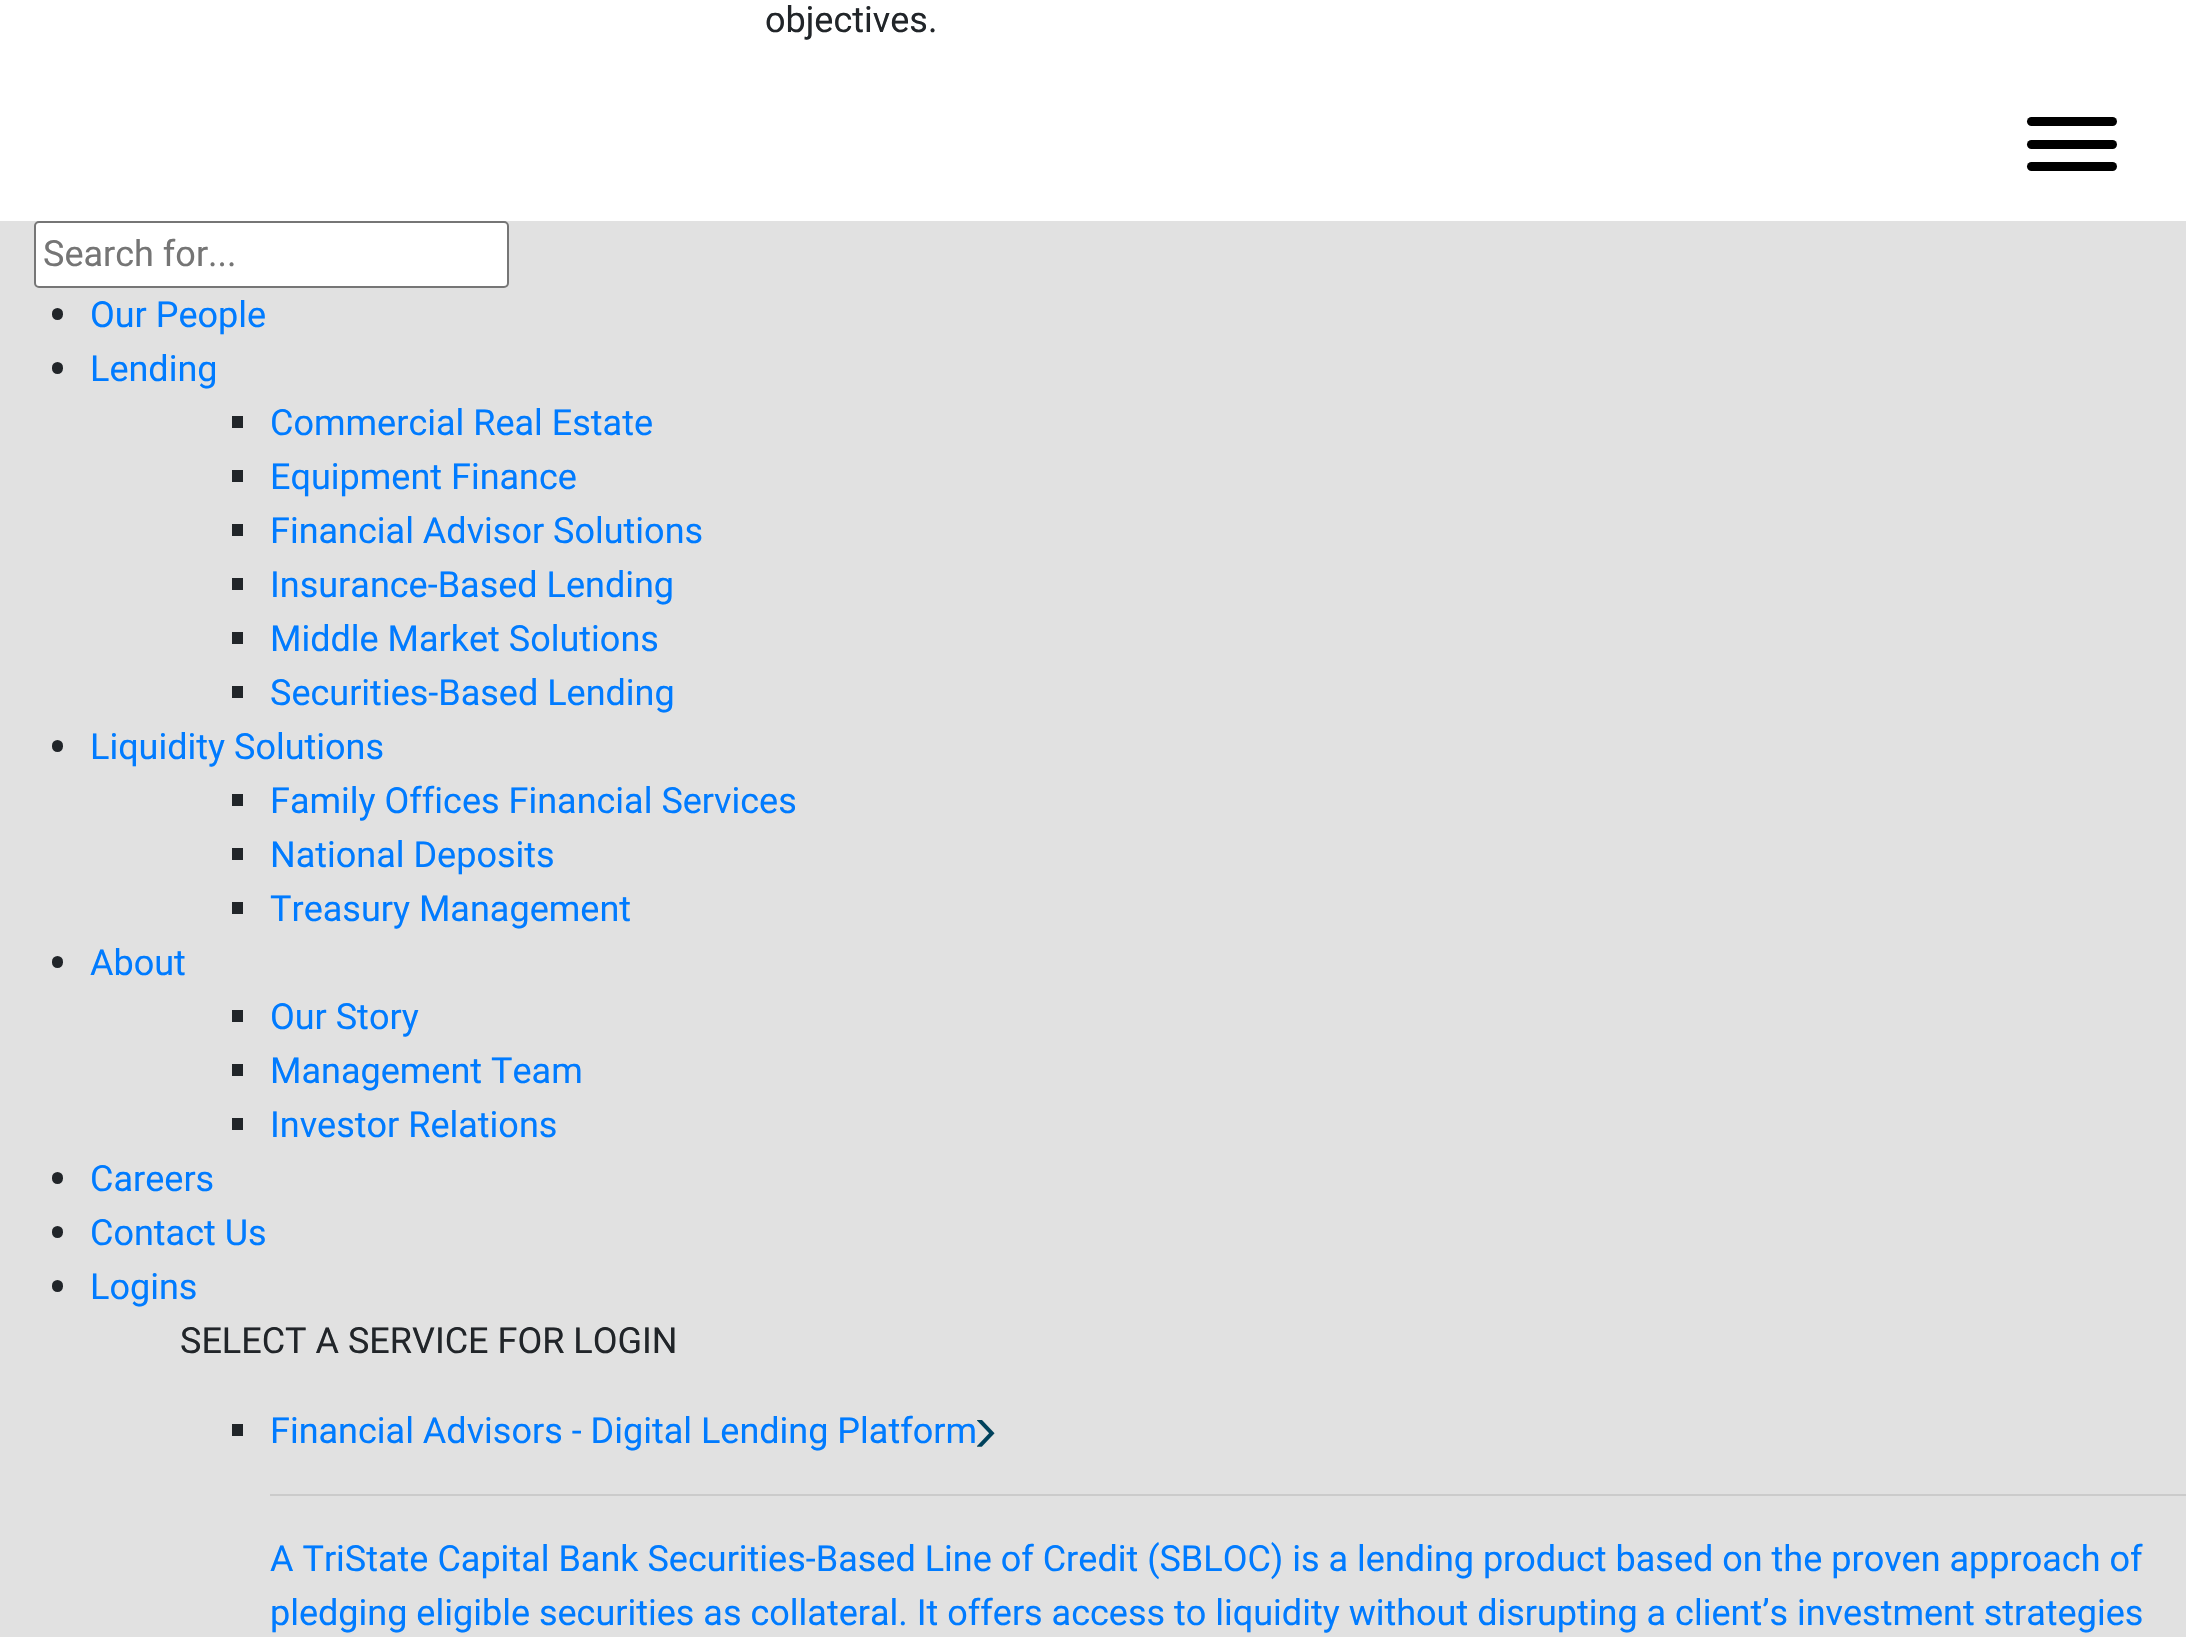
void draw(SkCanvas* c) {
SkPaint p;
p.setAntiAlias(true);
auto F=[&](const char* family, int weight, float size, bool italic = false){SkFontStyle style(weight, SkFontStyle::kNormal_Width,italic ? SkFontStyle::kItalic_Slant : SkFontStyle::kUpright_Slant);SkFont result(fontMgr->matchFamilyStyle(family, style), size);result.setSubpixel(true);return result;};
auto T=[&](const char* s, float x, float y, const SkFont& font){c->drawString(s, x, y, font, p);};
auto R=[&](float x, float y, float w, float h){c->drawRect(SkRect::MakeXYWH(x, y, w, h), p);};
auto Q=[&](float x, float y, float w, float h, float radius){c->drawRoundRect(SkRect::MakeXYWH(x, y, w, h), radius, radius, p);};
auto I=[&](const char* path, float x, float y, float w, float h){auto image = SkImages::DeferredFromEncodedData(SkData::MakeFromFileName(path));c->drawImageRect(image, SkRect::MakeXYWH(x, y, w, h), SkSamplingOptions());};
c->clear(0xffffffff);
auto f1 = F("Roboto",400,36);
p.setColor(0xff212529);
T("objectives.",765,32,f1);
p.setColor(0xff000000);
Q(2027,117,90,9,4.5);
Q(2027,140,90,9,4.5);
Q(2027,162,90,9,4.5);
p.setColor(0xffe1e1e1);
R(0,221,2186,1416);
p.setColor(0xffffffff);
c->drawRoundRect(SkRect::MakeXYWH(35,222,473,65),4,4,p);
p.setStroke(true);
p.setStrokeWidth(2);
p.setColor(0xff767676);
c->drawRoundRect(SkRect::MakeXYWH(35,222,473,65),4,4,p);
p.setStroke(false);
p.setColor(0xff757575);
T("Search for...",43,266,f1);
p.setColor(0xff212529);
Q(52,308,11,12,5.5);
p.setColor(0xff007bff);
T("Our People",90,327,f1);
p.setColor(0xff212529);
Q(52,362,11,12,5.5);
p.setColor(0xff007bff);
T("Lending",90,381,f1);
p.setColor(0xff212529);
R(232,416,11,12);
p.setColor(0xff007bff);
T("Commercial Real Estate",270,435,f1);
p.setColor(0xff212529);
R(232,470,11,12);
p.setColor(0xff007bff);
T("Equipment Finance",270,489,f1);
p.setColor(0xff212529);
R(232,524,11,12);
p.setColor(0xff007bff);
T("Financial Advisor Solutions",270,543,f1);
p.setColor(0xff212529);
R(232,578,11,12);
p.setColor(0xff007bff);
T("Insurance-Based Lending",270,597,f1);
p.setColor(0xff212529);
R(232,632,11,12);
p.setColor(0xff007bff);
T("Middle Market Solutions",270,651,f1);
p.setColor(0xff212529);
R(232,686,11,12);
p.setColor(0xff007bff);
T("Securities-Based Lending",270,705,f1);
p.setColor(0xff212529);
Q(52,740,11,12,5.5);
p.setColor(0xff007bff);
T("Liquidity Solutions",90,759,f1);
p.setColor(0xff212529);
R(232,794,11,12);
p.setColor(0xff007bff);
T("Family Offices Financial Services",270,813,f1);
p.setColor(0xff212529);
R(232,848,11,12);
p.setColor(0xff007bff);
T("National Deposits",270,867,f1);
p.setColor(0xff212529);
R(232,902,11,12);
p.setColor(0xff007bff);
T("Treasury Management",270,921,f1);
p.setColor(0xff212529);
Q(52,956,11,12,5.5);
p.setColor(0xff007bff);
T("About",90,975,f1);
p.setColor(0xff212529);
R(232,1010,11,12);
p.setColor(0xff007bff);
T("Our Story",270,1029,f1);
p.setColor(0xff212529);
R(232,1064,11,12);
p.setColor(0xff007bff);
T("Management Team",270,1083,f1);
p.setColor(0xff212529);
R(232,1118,11,12);
p.setColor(0xff007bff);
T("Investor Relations",270,1137,f1);
p.setColor(0xff212529);
Q(52,1172,11,12,5.5);
p.setColor(0xff007bff);
T("Careers",90,1191,f1);
p.setColor(0xff212529);
Q(52,1226,11,12,5.5);
p.setColor(0xff007bff);
T("Contact Us",90,1245,f1);
p.setColor(0xff212529);
Q(52,1280,11,12,5.5);
p.setColor(0xff007bff);
T("Logins",90,1299,f1);
p.setColor(0xff212529);
T("SELECT A SERVICE FOR LOGIN",180,1353,f1);
R(232,1424,11,12);
p.setColor(0xff007bff);
T("Financial Advisors - Digital Lending Platform",270,1443,f1);
I("1.png",977,1420,18,27);
p.setColor(0xffcbcbcb);
R(270,1494,1916,2);
p.setColor(0xff007bff);
T("A TriState Capital Bank Securities-Based Line of Credit (SBLOC) is a lending product based on the proven approach of",270,1571,f1);
T("pledging eligible securities as collateral. It offers access to liquidity without disrupting a client’s investment strategies",270,1625,f1);
}
